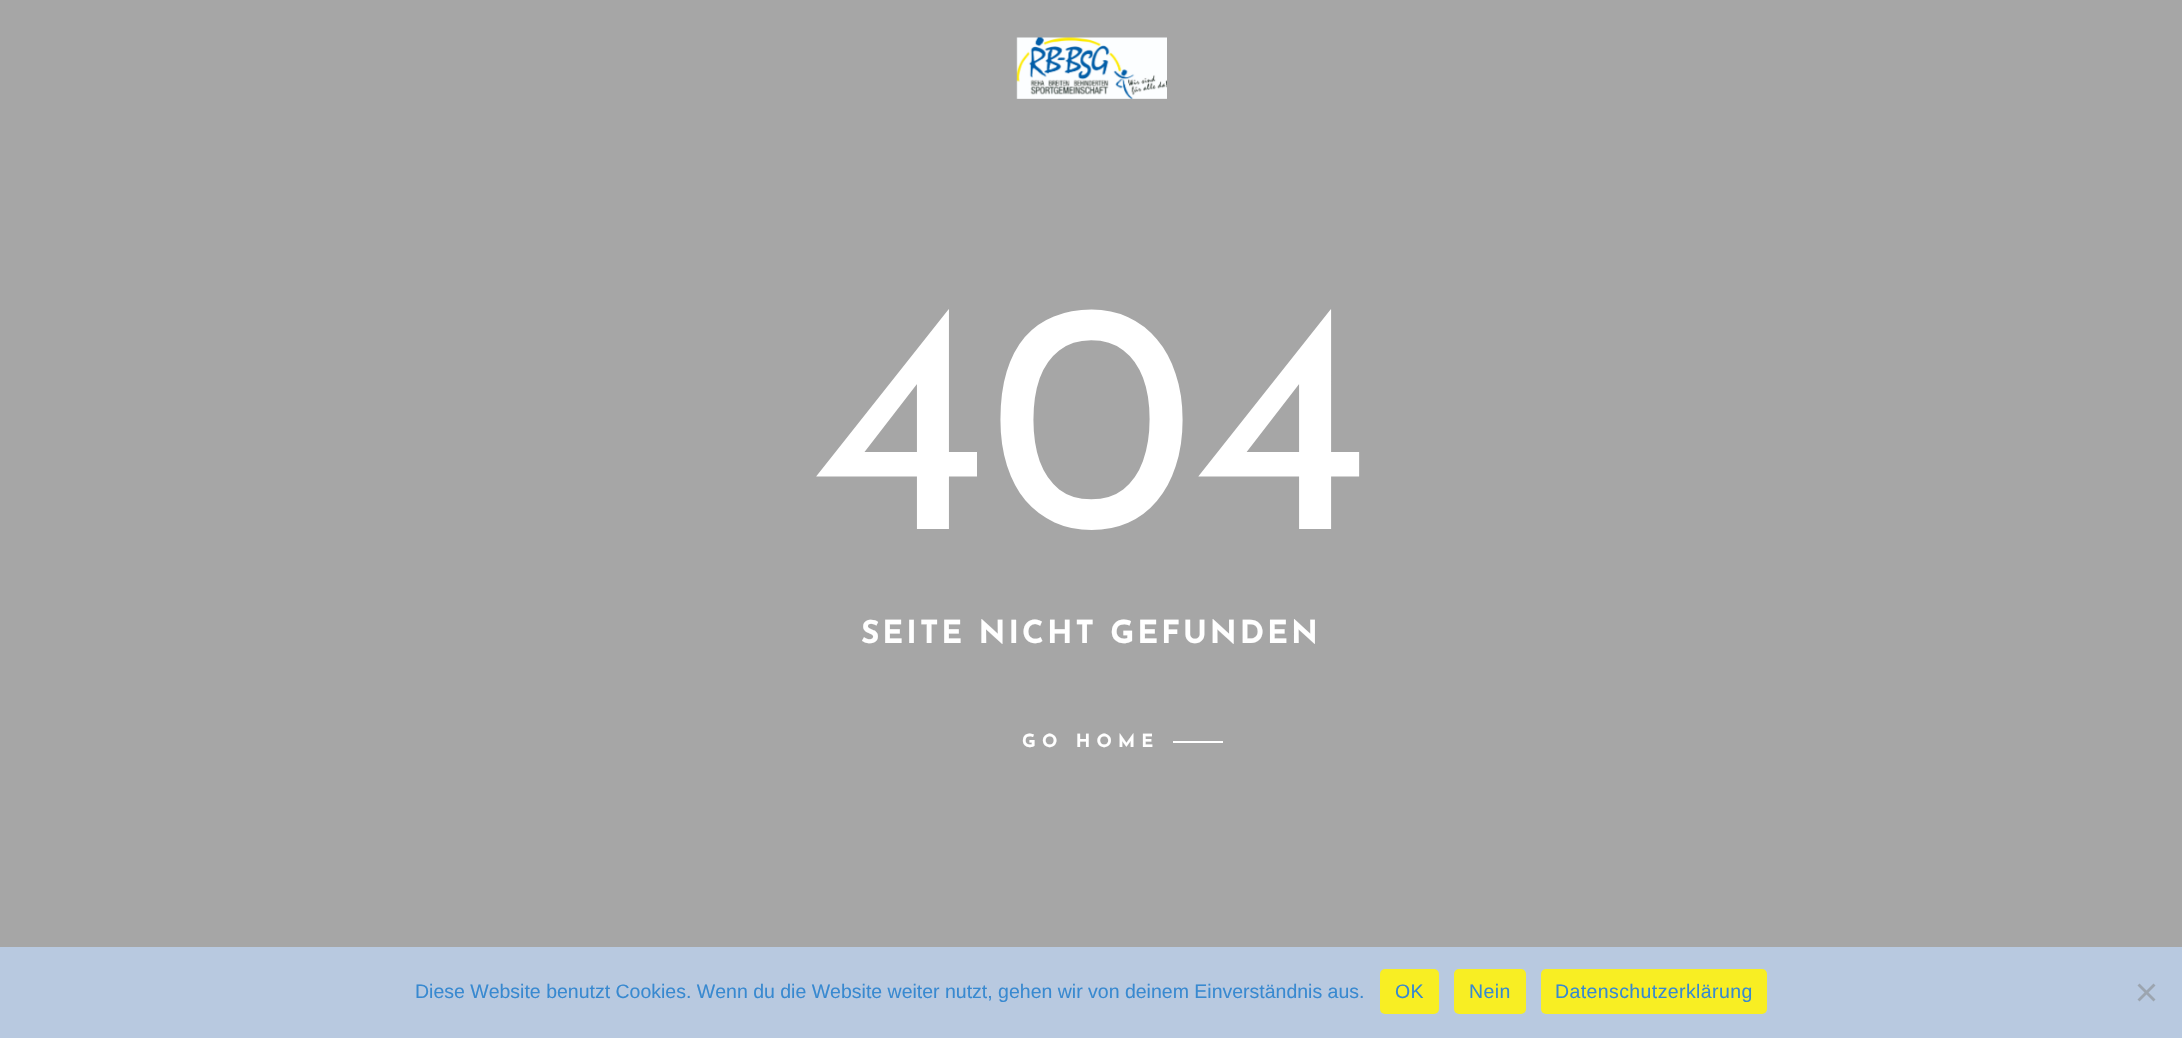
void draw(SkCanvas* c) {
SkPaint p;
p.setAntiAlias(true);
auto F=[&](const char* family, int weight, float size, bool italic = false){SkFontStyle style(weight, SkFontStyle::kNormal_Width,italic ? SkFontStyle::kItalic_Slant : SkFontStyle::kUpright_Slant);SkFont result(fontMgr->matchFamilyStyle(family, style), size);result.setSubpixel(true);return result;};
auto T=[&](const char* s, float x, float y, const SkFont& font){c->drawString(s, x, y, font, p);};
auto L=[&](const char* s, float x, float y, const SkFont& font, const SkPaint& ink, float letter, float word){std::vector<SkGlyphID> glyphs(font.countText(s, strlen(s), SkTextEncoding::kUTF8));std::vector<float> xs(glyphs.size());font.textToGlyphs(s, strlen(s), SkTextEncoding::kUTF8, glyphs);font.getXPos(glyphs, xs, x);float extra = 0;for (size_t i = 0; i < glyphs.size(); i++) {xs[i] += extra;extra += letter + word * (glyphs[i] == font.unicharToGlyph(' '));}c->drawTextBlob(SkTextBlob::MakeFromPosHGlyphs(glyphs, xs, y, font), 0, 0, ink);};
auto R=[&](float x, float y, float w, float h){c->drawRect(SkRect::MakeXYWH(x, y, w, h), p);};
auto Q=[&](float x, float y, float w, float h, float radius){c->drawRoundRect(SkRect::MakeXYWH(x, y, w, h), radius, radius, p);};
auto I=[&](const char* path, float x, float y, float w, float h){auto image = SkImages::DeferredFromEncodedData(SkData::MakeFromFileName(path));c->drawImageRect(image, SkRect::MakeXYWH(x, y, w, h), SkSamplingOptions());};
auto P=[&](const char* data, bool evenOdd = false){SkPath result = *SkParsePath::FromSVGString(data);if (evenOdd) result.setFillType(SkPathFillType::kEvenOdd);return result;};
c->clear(0xffa6a6a6);
I("1.png",1016,37,151,62);
auto f1 = F("Josefin Sans",400,330);
p.setColor(0xffffffff);
T("404",812,529,f1);
auto f2 = F("Josefin Sans",700,31.5);
L("SEITE NICHT GEFUNDEN",861,643,f2,p,3,0);
auto f3 = F("Josefin Sans",700,18);
L("GO HOME",1022,747,f3,p,6.25,0);
R(1173,741,50,2);
p.setColor(0xffb8c9e0);
R(0,947,2182,91);
auto f4 = F("Liberation Sans",400,19.5);
p.setColor(0xff3889d0);
T("Diese Website benutzt Cookies. Wenn du die Website weiter nutzt, gehen wir von deinem Einverständnis aus.",415,998,f4);
p.setColor(0xfff8ee23);
Q(1380,969,59,45,5);
p.setColor(0xff3889d0);
L("OK",1395,998,f4,p,.4,0);
p.setColor(0xfff8ee23);
Q(1454,969,72,45,5);
p.setColor(0xff3889d0);
L("Nein",1469,998,f4,p,.4,0);
p.setColor(0xfff8ee23);
Q(1541,969,226,45,5);
p.setColor(0xff3889d0);
L("Datenschutzerklärung",1555,998,f4,p,.4,0);
p.setColor(0xff9ca5b0);
c->drawPath(P("M2153.5 983.5l2 2l-16 16l-2-2z"),p);
c->drawPath(P("M2137.5 985.5l2-2l16 16l-2 2z"),p);
}
